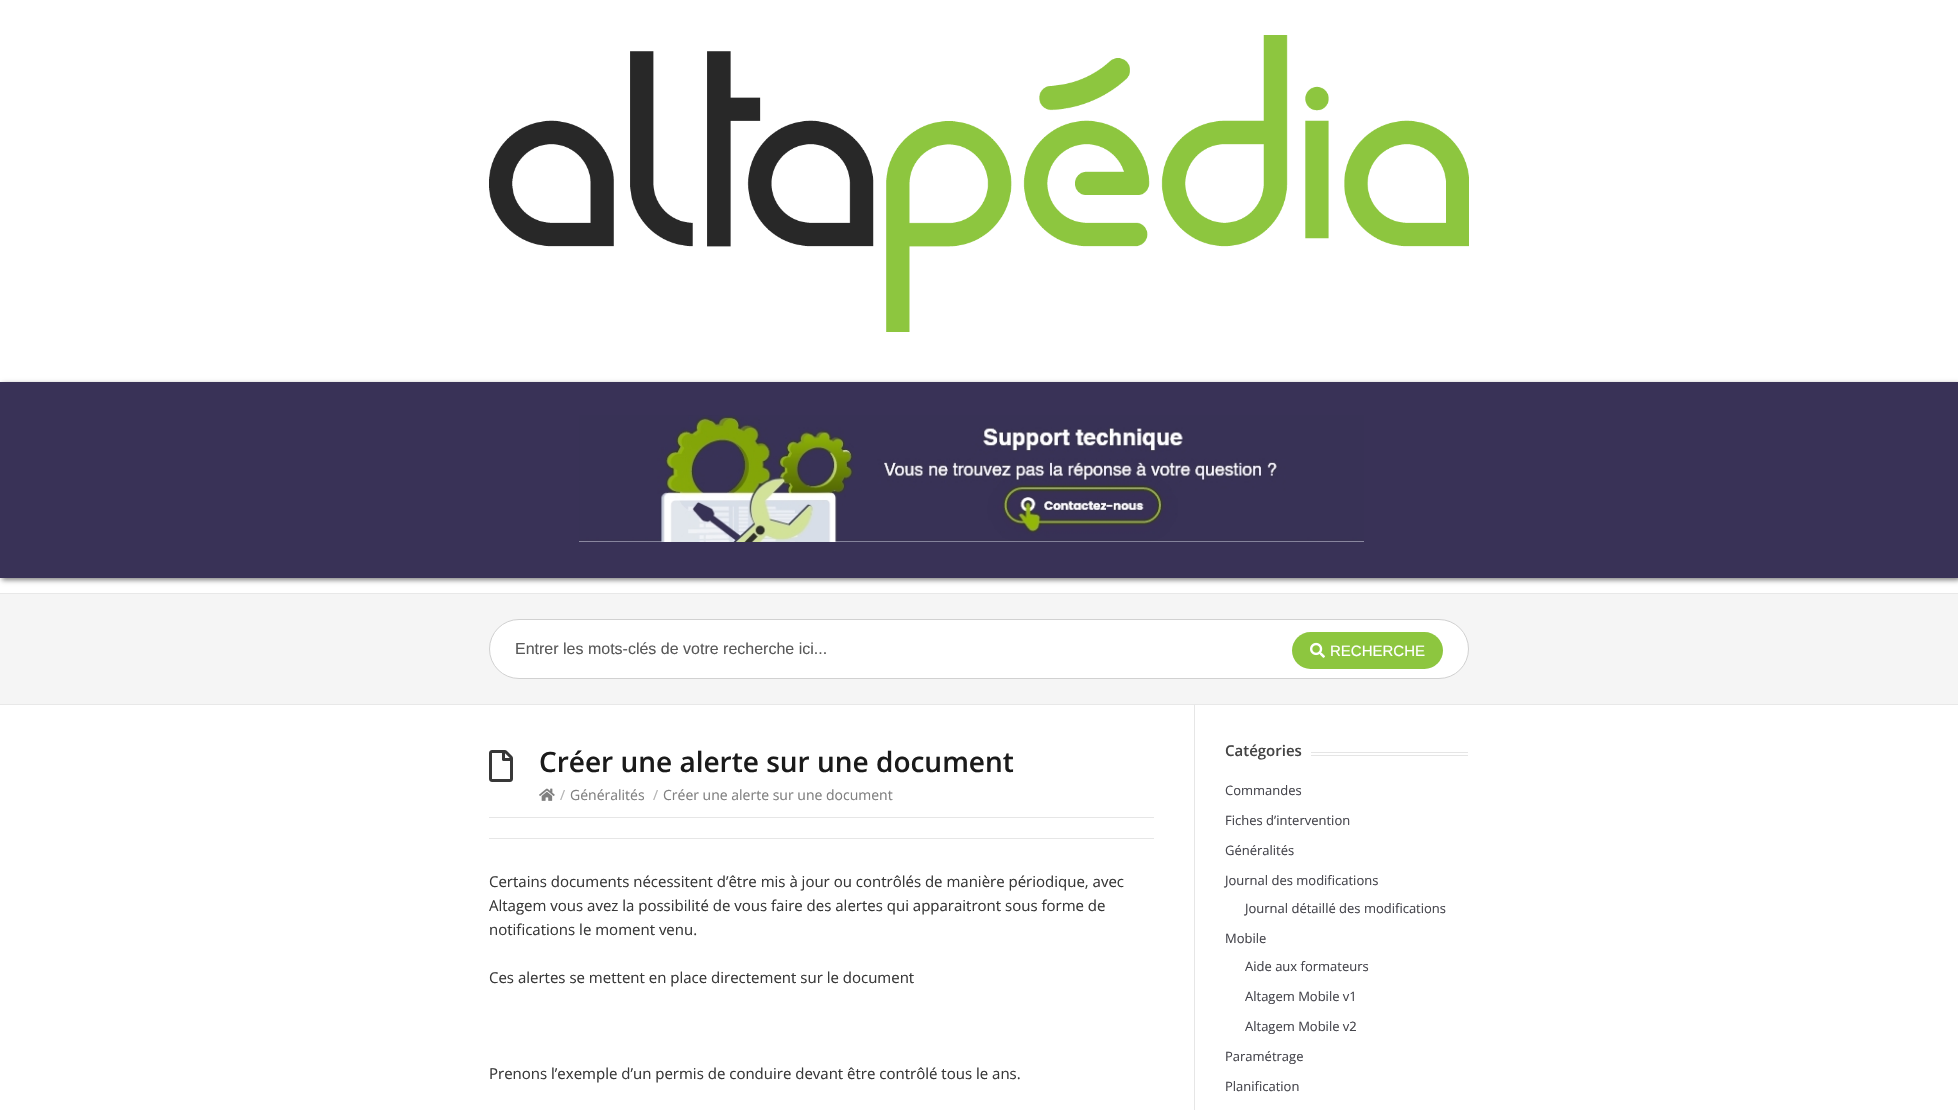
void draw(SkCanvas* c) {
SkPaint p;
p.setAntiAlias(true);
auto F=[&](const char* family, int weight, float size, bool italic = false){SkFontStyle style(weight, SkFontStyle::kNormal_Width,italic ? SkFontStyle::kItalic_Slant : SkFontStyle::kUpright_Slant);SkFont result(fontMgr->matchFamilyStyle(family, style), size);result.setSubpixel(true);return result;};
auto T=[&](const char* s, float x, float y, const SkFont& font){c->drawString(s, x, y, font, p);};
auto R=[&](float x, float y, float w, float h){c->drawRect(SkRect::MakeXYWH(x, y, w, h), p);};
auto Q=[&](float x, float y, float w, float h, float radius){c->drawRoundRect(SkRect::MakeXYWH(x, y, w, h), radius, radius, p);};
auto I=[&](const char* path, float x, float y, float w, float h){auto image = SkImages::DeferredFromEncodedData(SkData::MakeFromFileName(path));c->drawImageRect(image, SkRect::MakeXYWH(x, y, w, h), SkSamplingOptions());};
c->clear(0xffffffff);
I("1.png",489,35,980,297);
p.setColor(0xff808080);
p.setMaskFilter(SkMaskFilter::MakeBlur(kNormal_SkBlurStyle, 2.5));
c->drawRect(SkRect::MakeXYWH(2,384,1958,196),p);
p.setMaskFilter(nullptr);
p.setColor(0xff393257);
R(0,382,1958,196);
I("2.png",579,415,785,127);
p.setColor(0xfff5f5f5);
R(0,594,1958,110);
p.setColor(0xffe8e8e8);
R(0,593,1958,1);
R(0,704,1958,1);
p.setColor(0xffffffff);
c->drawRoundRect(SkRect::MakeXYWH(489.5,619.5,979,59),29.5,29.5,p);
p.setStroke(true);
p.setStrokeWidth(1);
p.setColor(0xffd1d1d1);
c->drawRoundRect(SkRect::MakeXYWH(489.5,619.5,979,59),29.5,29.5,p);
auto f1 = F("Liberation Sans",400,16);
p.setStroke(false);
p.setColor(0xff595959);
T("Entrer les mots-clés de votre recherche ici...",515,654,f1);
p.setColor(0xff8dc63f);
Q(1292,632,151,37,18.5);
I("3.png",1310,642,15,16);
auto f2 = F("Liberation Sans",400,15);
p.setColor(0xffffffff);
T("RECHERCHE",1330,656,f2);
p.setColor(0xffe6e6e6);
R(1194,705,1,405);
R(489,817,665,1);
I("4.png",489,750,24,32);
auto f3 = F("Open Sans",600,28);
p.setColor(0xff1a1a1a);
T("Créer une alerte sur une document",539,772,f3);
I("5.png",539,788,16,13);
auto f4 = F("Open Sans",400,14);
p.setColor(0xffb3b3b3);
T("/",560,800,f4);
p.setColor(0xff808080);
T("Généralités",570,800,f4);
p.setColor(0xffb3b3b3);
T("/",653,800,f4);
p.setColor(0xff808080);
T("Créer une alerte sur une document",663,800,f4);
p.setColor(0xffe6e6e6);
R(489,838,665,1);
auto f5 = F("Open Sans",400,15);
p.setColor(0xff383838);
T("Certains documents nécessitent d’être mis à jour ou contrôlés de manière périodique, avec",489,887,f5);
T("Altagem vous avez la possibilité de vous faire des alertes qui apparaitront sous forme de",489,911,f5);
T("notifications le moment venu.",489,935,f5);
T("Ces alertes se mettent en place directement sur le document",489,983,f5);
T("Prenons l’exemple d’un permis de conduire devant être contrôlé tous le ans.",489,1079,f5);
p.setColor(0xffe5e5e5);
R(1311,752,157,1);
R(1311,755,157,1);
auto f6 = F("Open Sans",600,15);
p.setColor(0xff444444);
T("Catégories",1225,756,f6);
auto f7 = F("Open Sans",400,13);
p.setColor(0xff45454c);
T("Commandes",1225,795,f7);
T("Fiches d’intervention",1225,825,f7);
T("Généralités",1225,855,f7);
T("Journal des modifications",1225,885,f7);
T("Journal détaillé des modifications",1245,913,f7);
T("Mobile",1225,943,f7);
T("Aide aux formateurs",1245,971,f7);
T("Altagem Mobile v1",1245,1001,f7);
T("Altagem Mobile v2",1245,1031,f7);
T("Paramétrage",1225,1061,f7);
T("Planification",1225,1091,f7);
}
